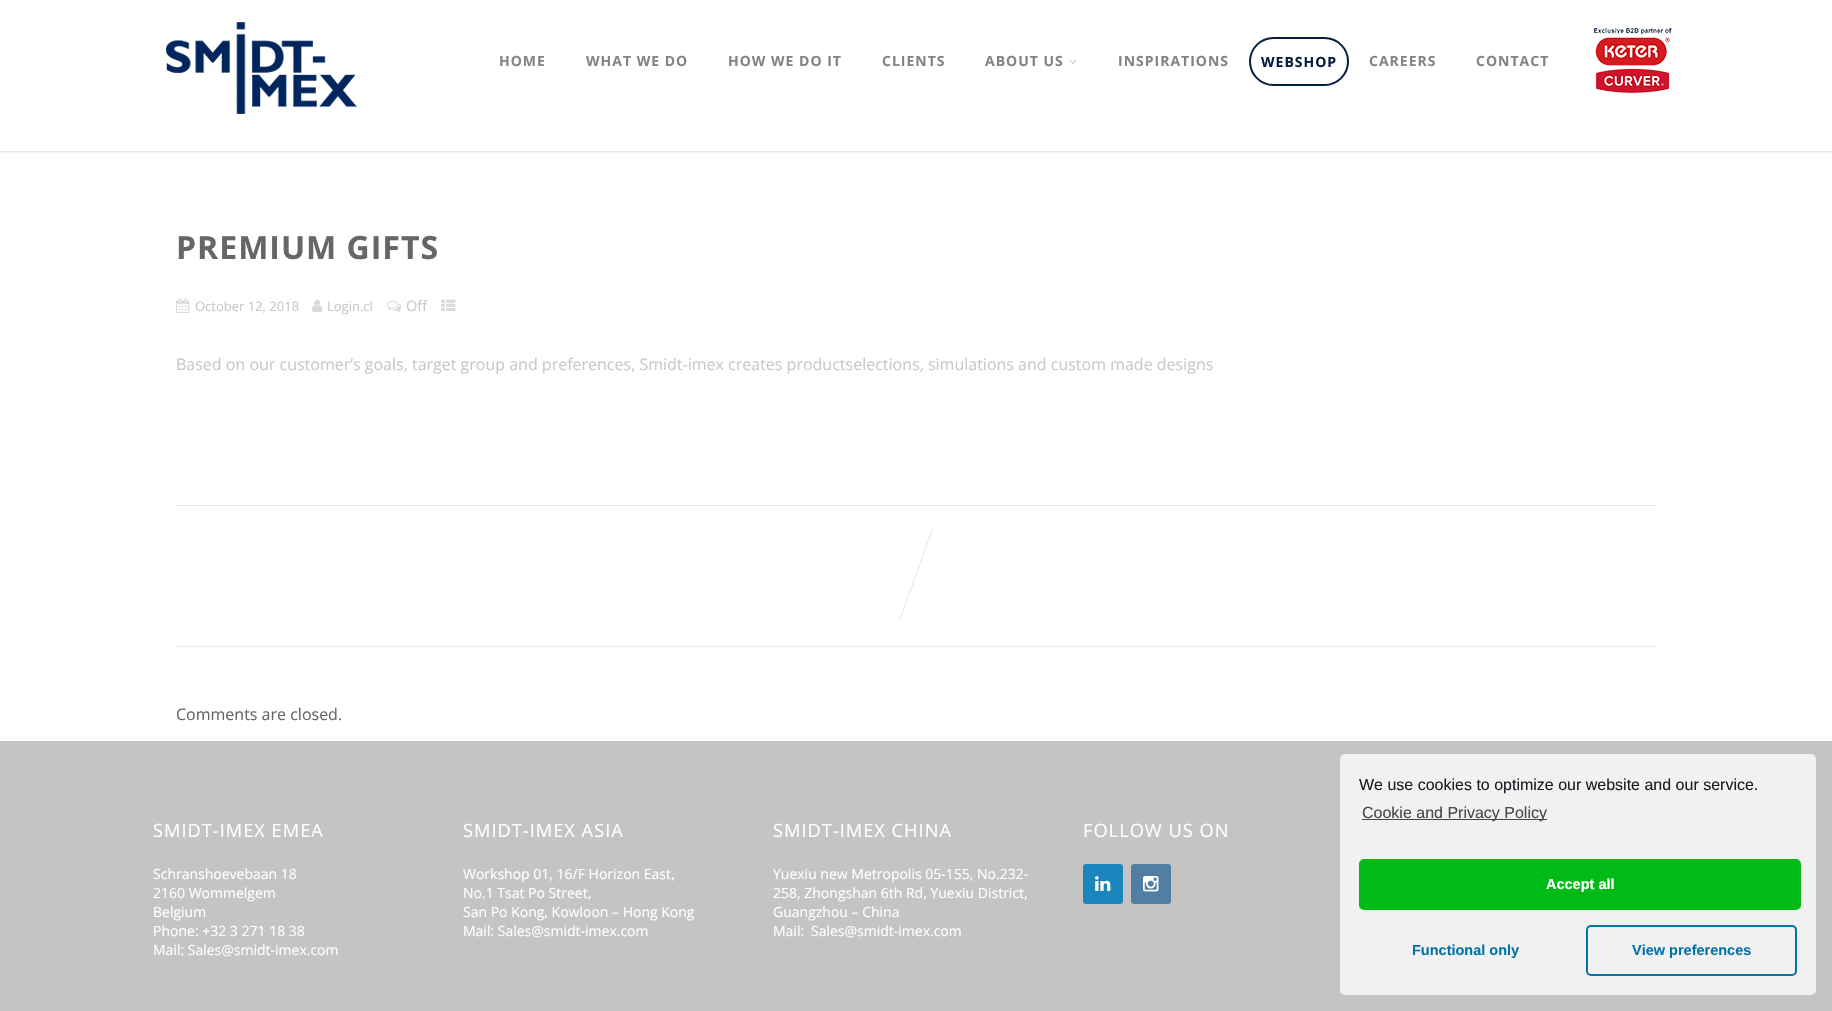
void draw(SkCanvas* c) {
SkPaint p;
p.setAntiAlias(true);
auto F=[&](const char* family, int weight, float size, bool italic = false){SkFontStyle style(weight, SkFontStyle::kNormal_Width,italic ? SkFontStyle::kItalic_Slant : SkFontStyle::kUpright_Slant);SkFont result(fontMgr->matchFamilyStyle(family, style), size);result.setSubpixel(true);return result;};
auto T=[&](const char* s, float x, float y, const SkFont& font){c->drawString(s, x, y, font, p);};
auto L=[&](const char* s, float x, float y, const SkFont& font, const SkPaint& ink, float letter, float word){std::vector<SkGlyphID> glyphs(font.countText(s, strlen(s), SkTextEncoding::kUTF8));std::vector<float> xs(glyphs.size());font.textToGlyphs(s, strlen(s), SkTextEncoding::kUTF8, glyphs);font.getXPos(glyphs, xs, x);float extra = 0;for (size_t i = 0; i < glyphs.size(); i++) {xs[i] += extra;extra += letter + word * (glyphs[i] == font.unicharToGlyph(' '));}c->drawTextBlob(SkTextBlob::MakeFromPosHGlyphs(glyphs, xs, y, font), 0, 0, ink);};
auto R=[&](float x, float y, float w, float h){c->drawRect(SkRect::MakeXYWH(x, y, w, h), p);};
auto Q=[&](float x, float y, float w, float h, float radius){c->drawRoundRect(SkRect::MakeXYWH(x, y, w, h), radius, radius, p);};
auto I=[&](const char* path, float x, float y, float w, float h){auto image = SkImages::DeferredFromEncodedData(SkData::MakeFromFileName(path));c->drawImageRect(image, SkRect::MakeXYWH(x, y, w, h), SkSamplingOptions());};
auto P=[&](const char* data, bool evenOdd = false){SkPath result = *SkParsePath::FromSVGString(data);if (evenOdd) result.setFillType(SkPathFillType::kEvenOdd);return result;};
c->clear(0xffffffff);
c->save();
c->clipRect(SkRect::MakeXYWH(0,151,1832,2));
p.setColor(0x40000000);
p.setMaskFilter(SkMaskFilter::MakeBlur(kNormal_SkBlurStyle, 1.5));
c->drawRect(SkRect::MakeXYWH(0,0,1832,151),p);
p.setMaskFilter(nullptr);
c->restore();
I("1.png",166,22,191,92);
auto f1 = F("Open Sans",700,14);
p.setColor(0xff848484);
L("HOME",499,66,f1,p,1,0);
L("WHAT WE DO",586,66,f1,p,1,0);
L("HOW WE DO IT",728,66,f1,p,1,0);
L("CLIENTS",882,66,f1,p,1,0);
L("ABOUT US",985,66,f1,p,1,0);
I("2.png",1069,60,8,4);
L("INSPIRATIONS",1118,66,f1,p,1,0);
p.setStroke(true);
p.setStrokeWidth(2);
p.setColor(0xff041e41);
c->drawRoundRect(SkRect::MakeXYWH(1250,38,98,47),23.5,23.5,p);
p.setStroke(false);
L("WEBSHOP",1261,67,f1,p,1,0);
p.setColor(0xff848484);
L("CAREERS",1369,66,f1,p,1,0);
L("CONTACT",1476,66,f1,p,1,0);
I("3.png",1594,28,78,65);
auto f2 = F("Open Sans",700,32);
p.setColor(0xff666666);
L("PREMIUM GIFTS",176,259,f2,p,1,0);
I("4.png",176,298,14,15);
auto f3 = F("Open Sans",400,13);
p.setColor(0xffc9c9c9);
T("October 12, 2018",195,311,f3);
I("5.png",312,299,11,13);
T("Login.cl",327,311,f3);
I("6.png",387,300,15,12);
auto f4 = F("Open Sans",400,14.5);
T("Off",406,311,f4);
I("7.png",441,299,15,12);
auto f5 = F("Open Sans",400,16);
T("Based on our customer’s goals, target group and preferences, Smidt-imex creates productselections, simulations and custom made designs",176,370,f5);
p.setColor(0xffe6e6e6);
R(176,505,1480,1);
p.setColor(0xffebebeb);
R(176,646,1480,1);
p.setColor(0xffe6e6e6);
c->drawPath(P("M932 529h1l-33 92h-1z"),p);
p.setColor(0xff666666);
T("Comments are closed.",176,720,f5);
p.setColor(0xffc4c4c4);
R(0,741,1832,270);
auto f6 = F("Open Sans",400,18.25);
p.setColor(0xffffffff);
L("SMIDT-IMEX EMEA",153,837,f6,p,1,0);
auto f7 = F("Open Sans",400,14);
T("Schranshoevebaan 18",153,879,f7);
T("2160 Wommelgem",153,898,f7);
T("Belgium",153,917,f7);
T("Phone: +32 3 271 18 38",153,936,f7);
T("Mail: Sales@smidt-imex.com",153,955,f7);
L("SMIDT-IMEX ASIA",463,837,f6,p,1,0);
T("Workshop 01, 16/F Horizon East,",463,879,f7);
T("No.1 Tsat Po Street,",463,898,f7);
T("San Po Kong, Kowloon – Hong Kong",463,917,f7);
T("Mail: Sales@smidt-imex.com",463,936,f7);
L("SMIDT-IMEX CHINA",773,837,f6,p,1,0);
T("Yuexiu new Metropolis 05-155, No.232-",773,879,f7);
T("258, Zhongshan 6th Rd, Yuexiu District,",773,898,f7);
T("Guangzhou – China",773,917,f7);
T("Mail:",773,936,f7);
T("Sales@smidt-imex.com",811,936,f7);
L("FOLLOW US ON",1083,837,f6,p,1,0);
p.setColor(0xff1a85bc);
Q(1083,864,40,40,3);
I("8.png",1095,876,16,15);
p.setColor(0xff517fa4);
Q(1131,864,40,40,3);
I("9.png",1143,876,16,16);
p.setColor(0xfff1f1f1);
Q(1340,754,476,241,5);
auto f8 = F("Liberation Sans",400,16);
p.setColor(0xff191e23);
T("We use cookies to optimize our website and our service.",1359,790,f8);
p.setColor(0xff44484c);
R(1362,819,185,1);
T("Cookie and Privacy Policy",1362,818,f8);
p.setColor(0xff00ba15);
c->drawRoundRect(SkRect::MakeXYWH(1360,860,440,49),4,4,p);
p.setStroke(true);
c->drawRoundRect(SkRect::MakeXYWH(1360,860,440,49),4,4,p);
auto f9 = F("Liberation Sans",700,14.5);
p.setStroke(false);
p.setColor(0xffffffff);
T("Accept all",1546,889,f9);
p.setColor(0xff0073aa);
T("Functional only",1412,955,f9);
p.setStroke(true);
c->drawRoundRect(SkRect::MakeXYWH(1587,926,209,49),4,4,p);
p.setStroke(false);
T("View preferences",1632,955,f9);
}
